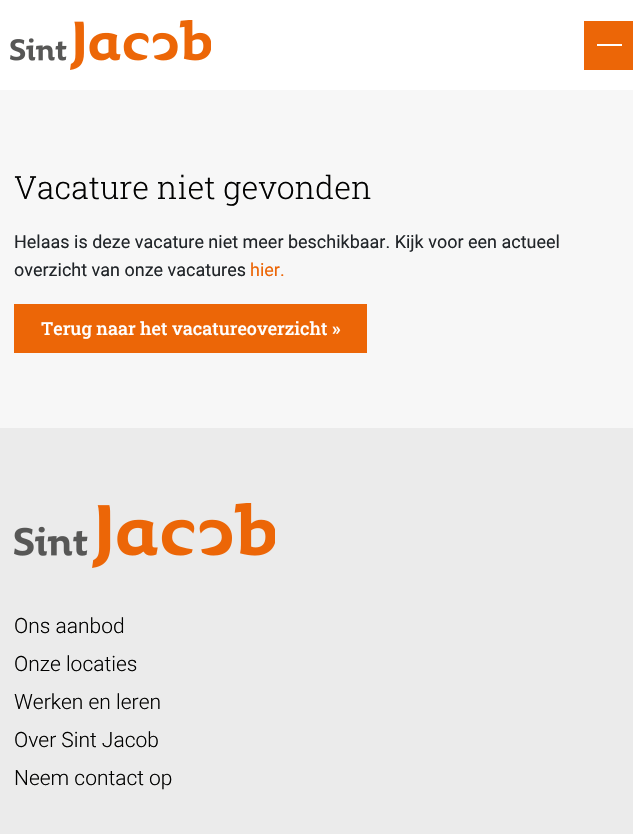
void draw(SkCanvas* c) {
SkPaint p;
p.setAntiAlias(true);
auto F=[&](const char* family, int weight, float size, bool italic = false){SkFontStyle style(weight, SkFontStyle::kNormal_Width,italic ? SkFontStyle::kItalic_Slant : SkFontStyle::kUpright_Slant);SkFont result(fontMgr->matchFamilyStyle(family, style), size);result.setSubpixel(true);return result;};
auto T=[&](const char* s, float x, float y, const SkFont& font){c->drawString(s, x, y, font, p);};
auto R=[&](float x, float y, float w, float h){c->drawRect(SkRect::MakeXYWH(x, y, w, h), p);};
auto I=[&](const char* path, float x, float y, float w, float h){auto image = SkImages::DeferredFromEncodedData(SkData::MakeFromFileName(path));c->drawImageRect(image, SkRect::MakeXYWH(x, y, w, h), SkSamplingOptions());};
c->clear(0xffffffff);
I("1.png",10,20,201,50);
p.setColor(0xffec6607);
R(584,21,49,49);
p.setColor(0xffffffff);
R(597,44,25,2);
p.setColor(0xfff7f7f7);
R(0,90,633,338);
auto f1 = F("Roboto Slab",300,32);
p.setColor(0xff020201);
T("Vacature niet gevonden",14,199,f1);
auto f2 = F("Roboto",400,18);
p.setColor(0xff212529);
T("Helaas is deze vacature niet meer beschikbaar. Kijk voor een actueel",14,248,f2);
T("overzicht van onze vacatures",14,276,f2);
p.setColor(0xffec6607);
T("hier.",250,276,f2);
R(14,304,353,49);
auto f3 = F("Roboto Slab",500,18);
p.setColor(0xffffffff);
T("Terug naar het vacatureoverzicht",41,335,f3);
T("»",332,335,f3);
p.setColor(0xffebebeb);
R(0,428,633,406);
I("2.png",14,503,261,65);
auto f4 = F("Roboto",300,21);
p.setColor(0xff020201);
T("Ons aanbod",14,633,f4);
T("Onze locaties",14,671,f4);
T("Werken en leren",14,709,f4);
T("Over Sint Jacob",14,747,f4);
T("Neem contact op",14,785,f4);
}
